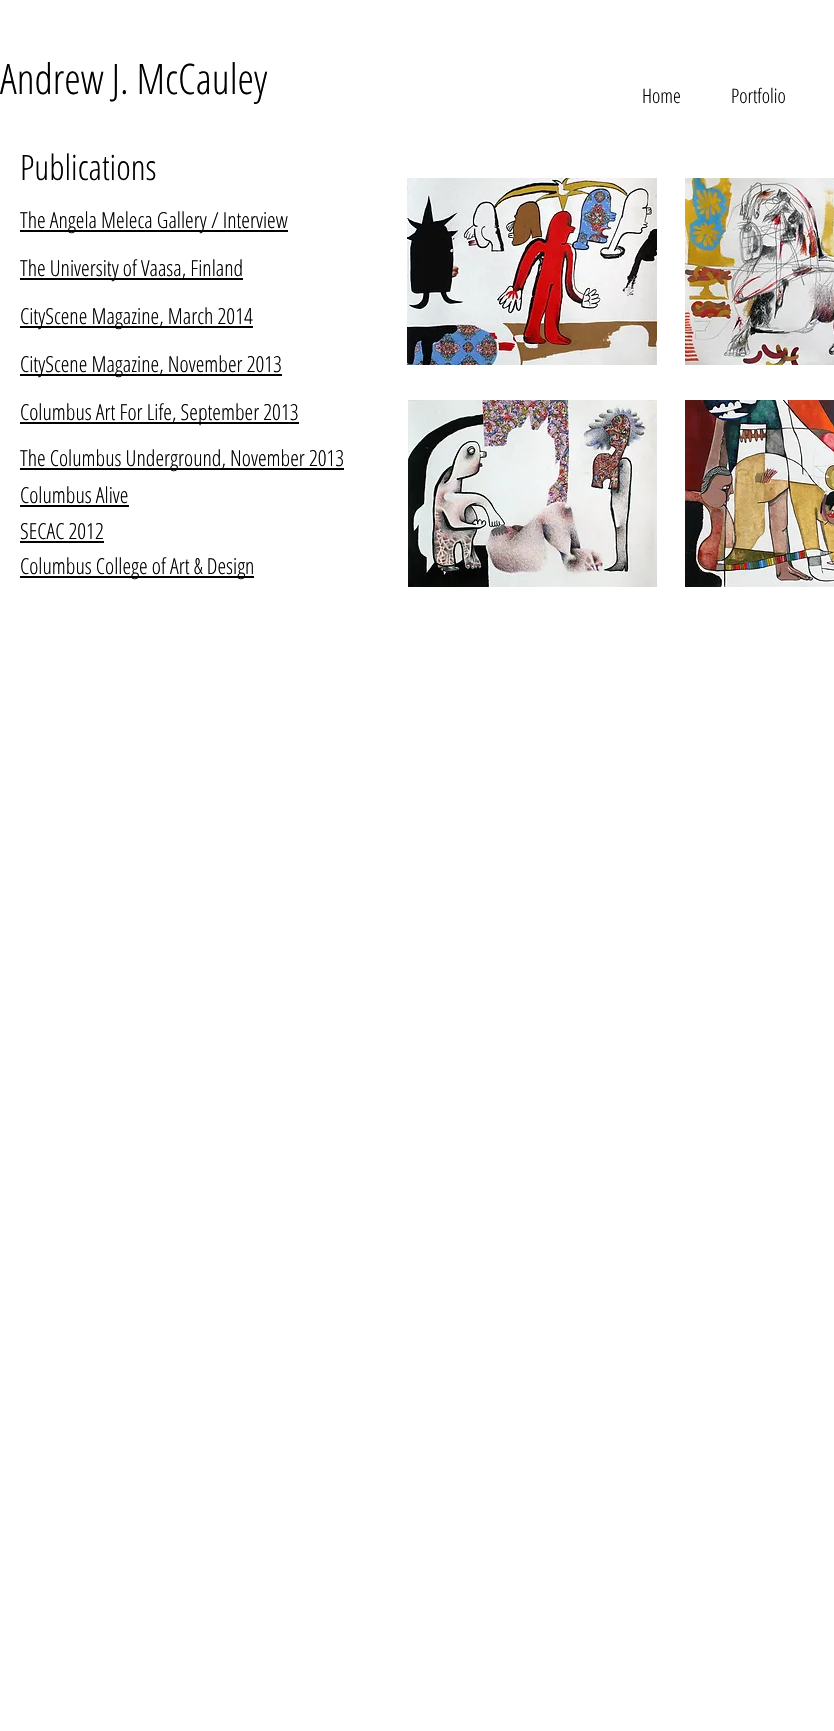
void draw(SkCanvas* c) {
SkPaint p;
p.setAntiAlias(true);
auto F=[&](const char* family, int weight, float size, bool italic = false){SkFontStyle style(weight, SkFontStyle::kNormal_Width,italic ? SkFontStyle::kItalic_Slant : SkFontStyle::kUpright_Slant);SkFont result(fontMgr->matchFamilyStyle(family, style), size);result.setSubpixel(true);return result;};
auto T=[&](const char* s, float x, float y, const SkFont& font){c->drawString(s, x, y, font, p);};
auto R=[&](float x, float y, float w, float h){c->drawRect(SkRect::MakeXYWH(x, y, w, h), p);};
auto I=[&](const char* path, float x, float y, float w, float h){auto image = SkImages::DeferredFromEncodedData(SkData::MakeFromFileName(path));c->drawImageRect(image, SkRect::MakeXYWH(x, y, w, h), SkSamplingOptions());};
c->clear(0xffffffff);
auto f1 = F("Open Sans Condensed",300,42);
p.setColor(0xff000000);
T("Andrew J. McCauley",0,94,f1);
auto f2 = F("Open Sans Condensed",300,20);
T("Home",642,103,f2);
T("Portfolio",731,103,f2);
auto f3 = F("Open Sans Condensed",300,35);
T("Publications",20,180,f3);
R(20,230,268,2);
auto f4 = F("Open Sans Condensed",300,22);
T("The Angela Meleca Gallery / Interview",20,228,f4);
I("1.png",407,178,250,187);
I("2.png",685,178,149,187);
R(20,278,223,2);
T("The University of Vaasa, Finland",20,276,f4);
R(20,326,233,2);
T("CityScene Magazine, March 2014",20,324,f4);
R(20,374,262,2);
T("CityScene Magazine, November 2013",20,372,f4);
R(20,422,279,2);
T("Columbus Art For Life, September 2013",20,420,f4);
I("3.png",408,400,249,187);
I("4.png",685,400,149,187);
R(20,468,324,2);
T("The Columbus Underground, November 2013",20,466,f4);
T("Columbus Alive",20,503,f4);
R(20,505,109,2);
T("SECAC 2012",20,539,f4);
R(20,541,84,2);
R(20,576,234,2);
T("Columbus College of Art & Design",20,574,f4);
}
